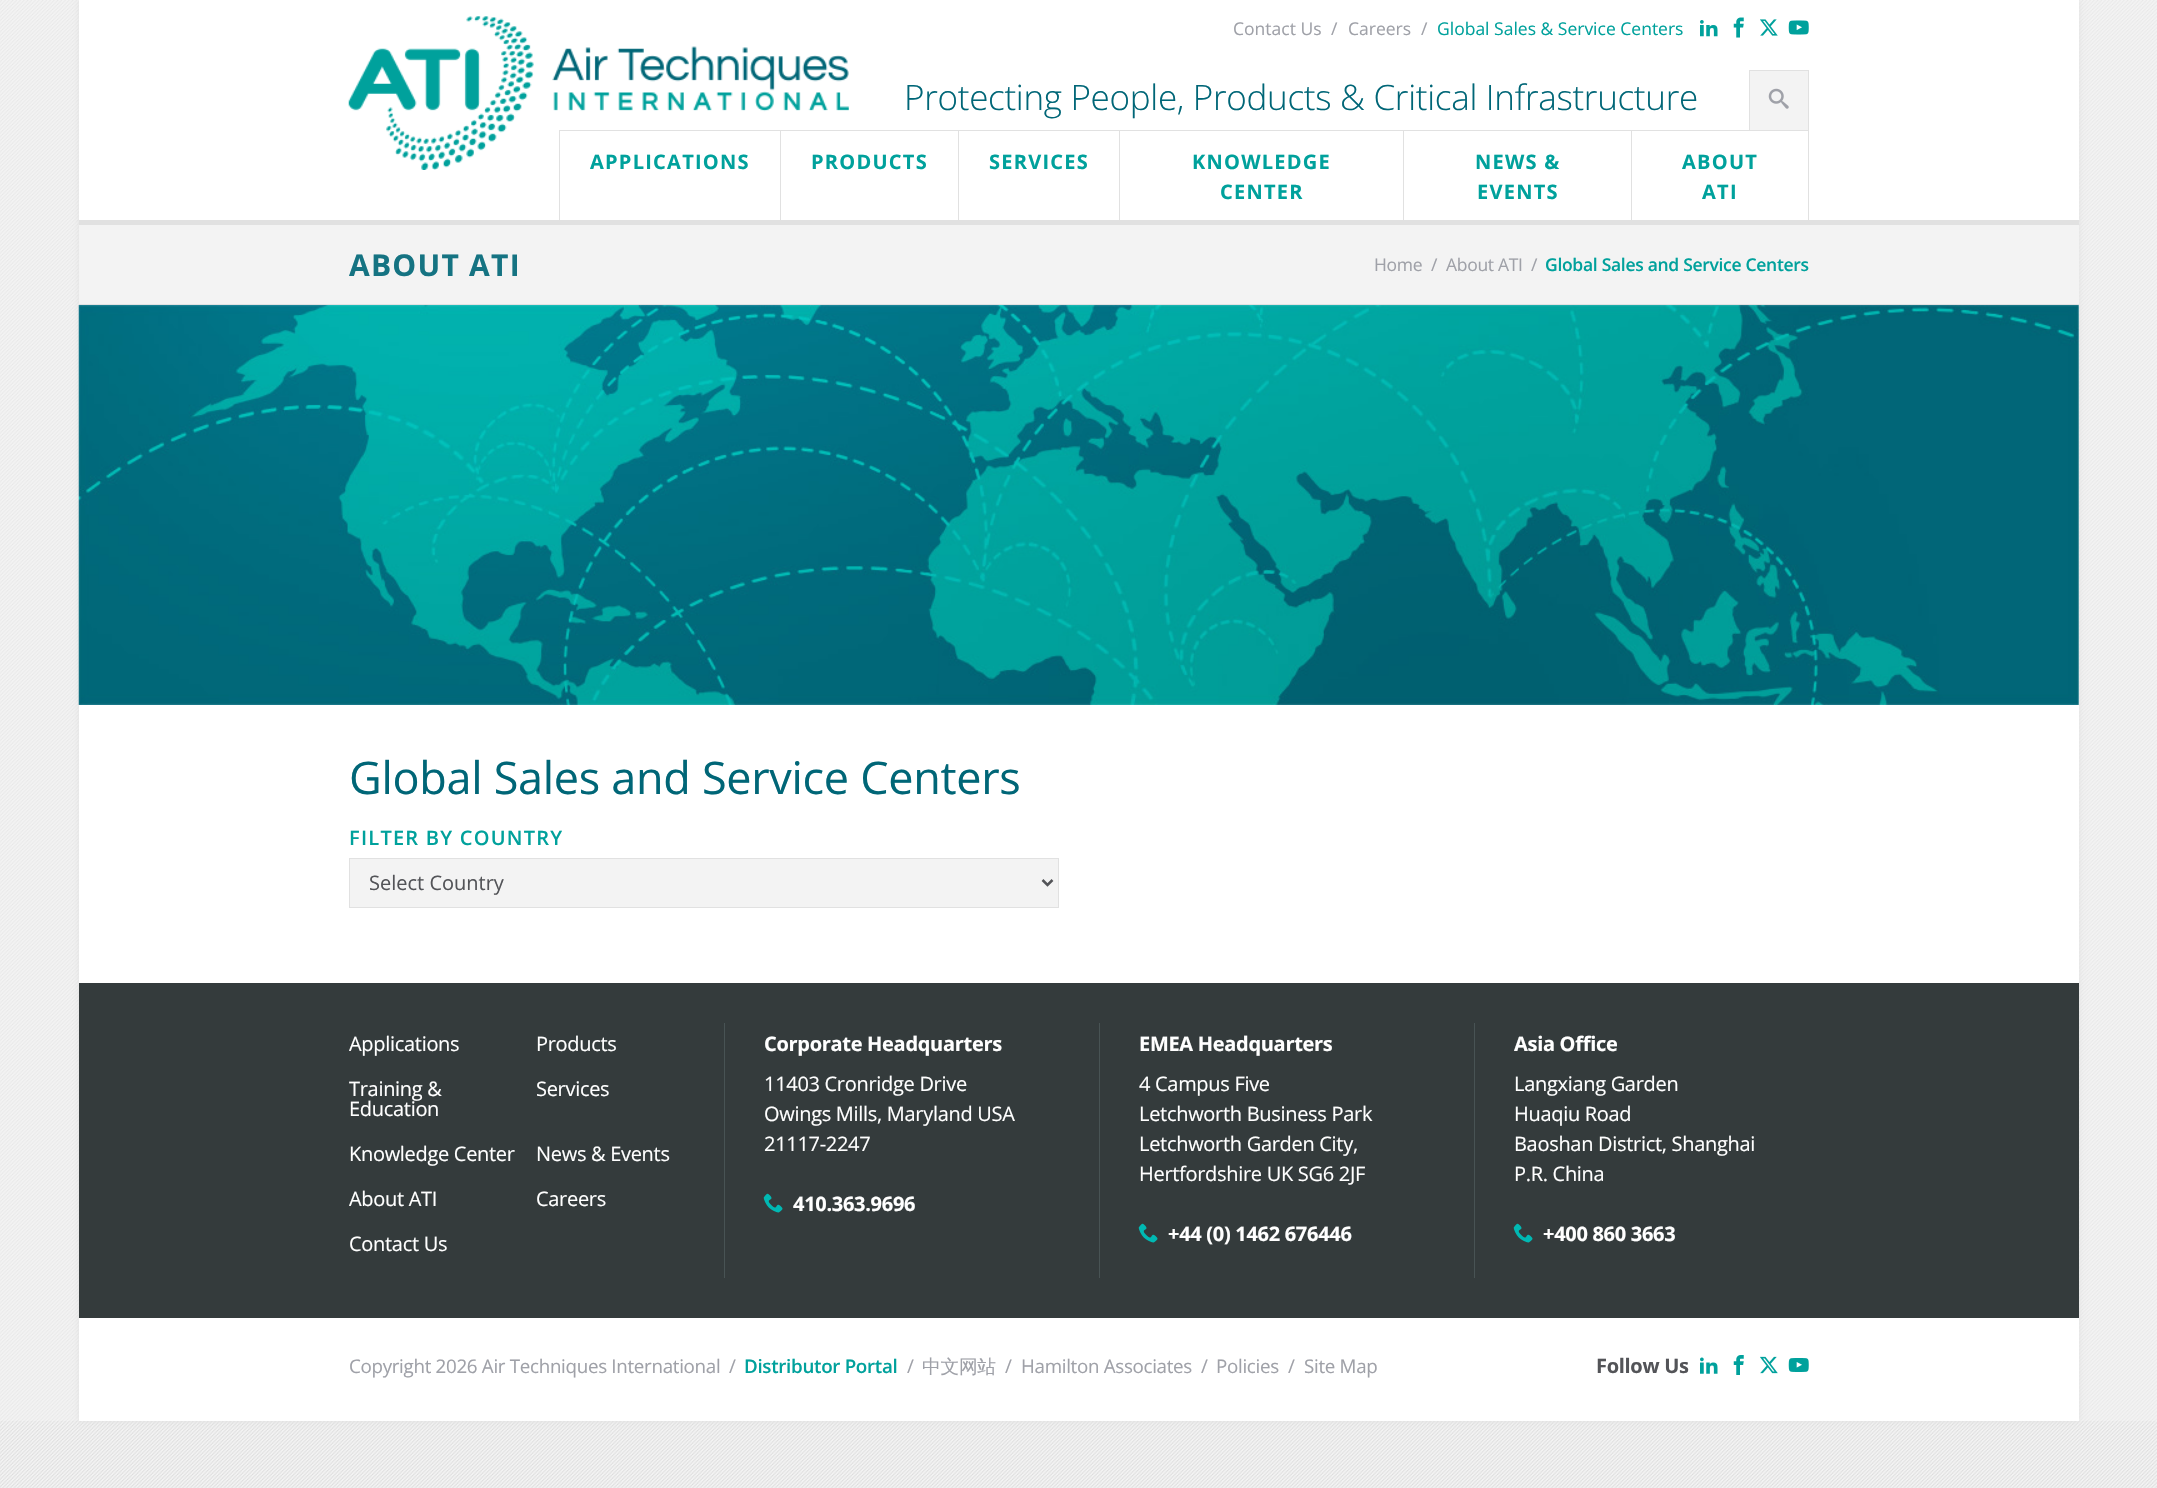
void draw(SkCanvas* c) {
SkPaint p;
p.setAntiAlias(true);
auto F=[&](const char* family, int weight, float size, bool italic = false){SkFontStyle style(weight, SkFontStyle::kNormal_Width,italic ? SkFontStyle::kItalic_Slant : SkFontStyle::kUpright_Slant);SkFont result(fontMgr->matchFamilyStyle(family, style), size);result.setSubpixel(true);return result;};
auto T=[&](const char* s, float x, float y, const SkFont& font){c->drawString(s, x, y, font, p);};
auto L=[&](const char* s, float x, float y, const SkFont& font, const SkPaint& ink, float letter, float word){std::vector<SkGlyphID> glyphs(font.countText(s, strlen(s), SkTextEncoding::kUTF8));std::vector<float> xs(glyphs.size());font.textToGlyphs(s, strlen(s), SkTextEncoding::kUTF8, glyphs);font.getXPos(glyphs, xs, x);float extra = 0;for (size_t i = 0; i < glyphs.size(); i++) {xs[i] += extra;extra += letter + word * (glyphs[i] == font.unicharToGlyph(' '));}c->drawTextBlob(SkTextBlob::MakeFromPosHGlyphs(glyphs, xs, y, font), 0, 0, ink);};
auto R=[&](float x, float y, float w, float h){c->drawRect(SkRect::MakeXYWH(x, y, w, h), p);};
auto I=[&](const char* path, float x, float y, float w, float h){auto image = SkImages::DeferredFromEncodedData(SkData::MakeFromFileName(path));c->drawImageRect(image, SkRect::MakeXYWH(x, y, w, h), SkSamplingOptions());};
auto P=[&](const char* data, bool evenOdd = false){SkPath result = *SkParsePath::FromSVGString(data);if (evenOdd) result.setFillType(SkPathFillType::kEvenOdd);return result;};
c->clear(0xfff3f3f3);
I("1.png",0,1421,2157,67);
I("2.png",0,0,2157,1488);
p.setColor(0xffe1e1e1);
p.setMaskFilter(SkMaskFilter::MakeBlur(kNormal_SkBlurStyle, 3));
c->drawRect(SkRect::MakeXYWH(79,0,2000,1421),p);
p.setMaskFilter(nullptr);
p.setColor(0xffffffff);
R(79,0,2000,1421);
p.setColor(0xffe1e1e1);
R(79,220,2000,5);
auto f1 = F("Open Sans",400,17.5);
p.setColor(0xff9fa1a8);
T("Contact Us",1233,35,f1);
T("/",1331,35,f1);
T("Careers",1348,35,f1);
T("/",1421,35,f1);
p.setColor(0xff00a19c);
T("Global Sales & Service Centers",1437,35,f1);
I("3.png",1700,20,18,17);
I("4.png",1733,17,11,21);
I("5.png",1760,19,18,17);
I("6.png",1788,20,21,15);
p.setColor(0xfff3f3f3);
R(1750,71,58,59);
p.setColor(0xffe1e1e1);
R(1749,70,60,1);
R(1808,70,1,60);
R(1749,70,1,60);
I("7.png",1768,88,21,21);
I("8.png",348,16,501,154);
R(559,130,1250,1);
R(1808,130,1,90);
R(559,130,1,90);
auto f2 = F("Open Sans",700,20);
p.setColor(0xff00a19c);
L("APPLICATIONS",590,169,f2,p,1.25,0);
p.setColor(0xffe1e1e1);
R(780,131,1,89);
p.setColor(0xff00a19c);
L("PRODUCTS",811,169,f2,p,1.25,0);
p.setColor(0xffe1e1e1);
R(958,131,1,89);
p.setColor(0xff00a19c);
L("SERVICES",989,169,f2,p,1.25,0);
p.setColor(0xffe1e1e1);
R(1119,131,1,89);
p.setColor(0xff00a19c);
L("KNOWLEDGE",1192,169,f2,p,1.25,0);
L("CENTER",1220,199,f2,p,1.25,0);
p.setColor(0xffe1e1e1);
R(1403,131,1,89);
p.setColor(0xff00a19c);
L("NEWS &",1475,169,f2,p,1.25,0);
L("EVENTS",1477,199,f2,p,1.25,0);
p.setColor(0xffe1e1e1);
R(1631,131,1,89);
p.setColor(0xff00a19c);
L("ABOUT",1682,169,f2,p,1.25,0);
L("ATI",1702,199,f2,p,1.25,0);
auto f3 = F("Open Sans",300,35);
p.setColor(0xff006677);
L("Protecting People, Products & Critical Infrastructure",904,110,f3,p,-.3,0);
p.setColor(0xfff3f3f3);
R(79,225,2000,79);
p.setColor(0xffe1e1e1);
R(79,304,2000,1);
auto f4 = F("Open Sans",700,30);
p.setColor(0xff157382);
L("ABOUT ATI",349,276,f4,p,1.25,0);
p.setColor(0xff9fa1a8);
L("Home",1374,271,f1,p,-.3,0);
L("/",1431,271,f1,p,-.3,0);
L("About ATI",1446,271,f1,p,-.3,0);
L("/",1531,271,f1,p,-.3,0);
auto f5 = F("Open Sans",600,17.5);
p.setColor(0xff00a19c);
L("Global Sales and Service Centers",1545,271,f5,p,-.3,0);
I("9.png",78,305,2001,400);
auto f6 = F("Open Sans",400,45);
p.setColor(0xff006677);
L("Global Sales and Service Centers",349,794,f6,p,-.3,0);
auto f7 = F("Open Sans",600,20);
p.setColor(0xff00a19c);
L("FILTER BY COUNTRY",349,845,f7,p,1.25,0);
p.setColor(0xfff3f3f3);
c->drawRect(SkRect::MakeXYWH(349.5,858.5,709,49),p);
p.setStroke(true);
p.setStrokeWidth(1);
p.setColor(0xffe1e1e1);
c->drawRect(SkRect::MakeXYWH(349.5,858.5,709,49),p);
p.setStrokeWidth(2.5);
p.setColor(0xff535458);
c->drawPath(P("M1042.5 880l5 5l5-5"),p);
auto f8 = F("Open Sans",400,20);
p.setStroke(false);
T("Select Country",369,890,f8);
p.setColor(0xff343b3c);
R(79,983,2000,335);
p.setColor(0xffffffff);
L("Applications",349,1051,f8,p,-.3,0);
L("Products",536,1051,f8,p,-.3,0);
L("Training &",349,1096,f8,p,-.3,0);
L("Education",349,1116,f8,p,-.3,0);
L("Services",536,1096,f8,p,-.3,0);
L("Knowledge Center",349,1161,f8,p,-.3,0);
L("News & Events",536,1161,f8,p,-.3,0);
L("About ATI",349,1206,f8,p,-.3,0);
L("Careers",536,1206,f8,p,-.3,0);
L("Contact Us",349,1251,f8,p,-.3,0);
p.setColor(0xff485354);
R(724,1023,1,255);
p.setColor(0xffffffff);
L("Corporate Headquarters",764,1051,f2,p,-.3,0);
L("11403 Cronridge Drive",764,1091,f8,p,-.3,0);
L("Owings Mills, Maryland USA",764,1121,f8,p,-.3,0);
L("21117-2247",764,1151,f8,p,-.3,0);
I("10.png",763,1193,20,20);
L("410.363.9696",793,1211,f2,p,-.3,0);
p.setColor(0xff485354);
R(1099,1023,1,255);
p.setColor(0xffffffff);
L("EMEA Headquarters",1139,1051,f2,p,-.3,0);
L("4 Campus Five",1139,1091,f8,p,-.3,0);
L("Letchworth Business Park",1139,1121,f8,p,-.3,0);
L("Letchworth Garden City,",1139,1151,f8,p,-.3,0);
L("Hertfordshire UK SG6 2JF",1139,1181,f8,p,-.3,0);
I("10.png",1138,1223,20,20);
L("+44 (0) 1462 676446",1168,1241,f2,p,-.3,0);
p.setColor(0xff485354);
R(1474,1023,1,255);
p.setColor(0xffffffff);
L("Asia Office",1514,1051,f2,p,-.3,0);
L("Langxiang Garden",1514,1091,f8,p,-.3,0);
L("Huaqiu Road",1514,1121,f8,p,-.3,0);
L("Baoshan District, Shanghai",1514,1151,f8,p,-.3,0);
L("P.R. China",1514,1181,f8,p,-.3,0);
I("10.png",1513,1223,20,20);
L("+400 860 3663",1543,1241,f2,p,-.3,0);
auto f9 = F("Open Sans",400,18.75);
p.setColor(0xff9fa1a8);
L("Copyright 2026 Air Techniques International",349,1373,f9,p,-.3,0);
L("/",729,1373,f9,p,-.3,0);
auto f10 = F("Open Sans",600,18.75);
p.setColor(0xff00a19c);
L("Distributor Portal",744,1373,f10,p,-.3,0);
p.setColor(0xff9fa1a8);
L("/",907,1373,f9,p,-.3,0);
auto f11 = F("WenQuanYi Zen Hei",500,18.75);
L("中文网站",922,1373,f11,p,-.3,0);
L("/",1005,1373,f9,p,-.3,0);
L("Hamilton Associates",1021,1373,f9,p,-.3,0);
L("/",1201,1373,f9,p,-.3,0);
L("Policies",1216,1373,f9,p,-.3,0);
L("/",1288,1373,f9,p,-.3,0);
L("Site Map",1304,1373,f9,p,-.3,0);
p.setColor(0xff535458);
L("Follow Us",1596,1373,f2,p,-.3,0);
I("11.png",1700,1357,18,17);
I("12.png",1733,1355,11,20);
I("13.png",1760,1356,18,18);
I("14.png",1788,1358,21,14);
}
